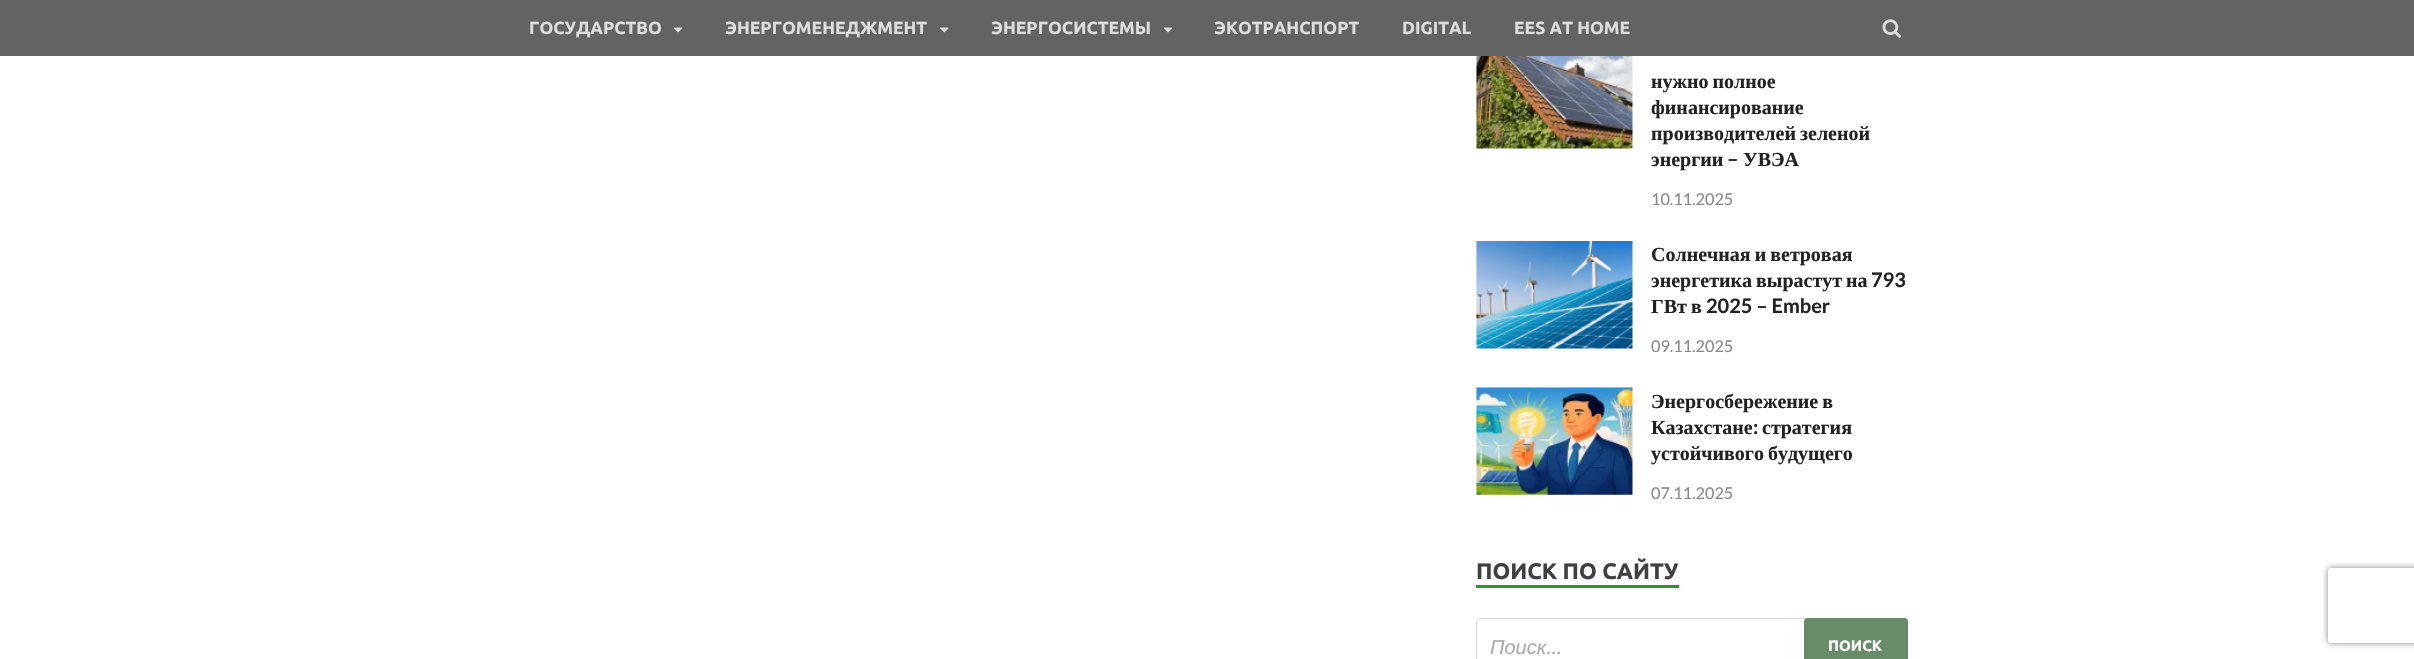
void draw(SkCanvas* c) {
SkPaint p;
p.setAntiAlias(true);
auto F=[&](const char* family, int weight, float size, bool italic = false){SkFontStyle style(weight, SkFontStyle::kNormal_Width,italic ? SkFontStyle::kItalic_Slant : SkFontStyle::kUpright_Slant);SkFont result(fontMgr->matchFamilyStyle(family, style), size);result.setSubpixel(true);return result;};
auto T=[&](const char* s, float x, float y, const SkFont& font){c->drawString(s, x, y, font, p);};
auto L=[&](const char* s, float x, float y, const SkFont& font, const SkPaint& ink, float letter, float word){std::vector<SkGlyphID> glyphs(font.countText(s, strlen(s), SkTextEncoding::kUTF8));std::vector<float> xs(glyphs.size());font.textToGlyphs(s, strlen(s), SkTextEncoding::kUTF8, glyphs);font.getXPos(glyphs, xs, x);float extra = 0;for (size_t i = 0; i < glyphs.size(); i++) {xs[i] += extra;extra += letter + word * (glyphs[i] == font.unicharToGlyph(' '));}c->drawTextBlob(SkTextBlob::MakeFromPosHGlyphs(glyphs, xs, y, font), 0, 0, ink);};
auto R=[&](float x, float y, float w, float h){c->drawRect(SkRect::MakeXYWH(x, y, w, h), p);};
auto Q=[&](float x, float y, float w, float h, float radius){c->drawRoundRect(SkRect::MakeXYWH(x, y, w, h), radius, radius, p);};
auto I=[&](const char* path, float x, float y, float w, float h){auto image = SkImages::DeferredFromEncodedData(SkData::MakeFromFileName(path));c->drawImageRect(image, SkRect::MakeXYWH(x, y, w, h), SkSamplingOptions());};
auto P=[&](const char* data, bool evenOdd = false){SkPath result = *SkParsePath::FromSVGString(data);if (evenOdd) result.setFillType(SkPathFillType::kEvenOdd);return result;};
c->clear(0xffffffff);
p.setColor(0xff636363);
R(0,0,2414,56);
auto f1 = F("Ubuntu",700,17.5);
p.setColor(0xffdddddd);
T("ГОСУДАРСТВО",529,34,f1);
I("1.png",673,27,10,6);
T("ЭНЕРГОМЕНЕДЖМЕНТ",725,34,f1);
I("2.png",940,27,9,6);
T("ЭНЕРГОСИСТЕМЫ",991,34,f1);
I("1.png",1163,27,10,6);
T("ЭКОТРАНСПОРТ",1214,34,f1);
T("DIGITAL",1402,34,f1);
T("EES AT HOME",1514,34,f1);
I("3.png",1882,19,19,19);
I("4.png",1476,56,157,93);
auto f2 = F("Liberation Serif",700,20);
p.setColor(0xff222222);
L("нужно полное",1651,88,f2,p,0,-1);
T("финансирование",1651,114,f2);
L("производителей зеленой",1651,140,f2,p,0,-1);
T("энергии",1651,166,f2);
auto f3 = F("Lato",700,20);
T("–",1727,166,f3);
T("УВЭА",1743,166,f2);
auto f4 = F("Lato",400,16.25);
p.setColor(0xff888888);
T("10.11.2025",1651,205,f4);
I("5.png",1476,241,157,108);
p.setColor(0xff222222);
L("Солнечная и ветровая",1651,261,f2,p,0,-1);
L("энергетика вырастут на",1651,287,f2,p,0,-1);
T("793",1871,287,f3);
T("ГВт",1651,313,f2);
T("в",1691,313,f2);
T("2025 – Ember",1706,313,f3);
p.setColor(0xff888888);
T("09.11.2025",1651,352,f4);
I("6.png",1476,387,157,108);
p.setColor(0xff222222);
L("Энергосбережение в",1651,408,f2,p,0,-1);
T("Казахстане",1651,434,f2);
T(":",1753,434,f3);
T("стратегия",1762,434,f2);
L("устойчивого будущего",1651,460,f2,p,0,-1);
p.setColor(0xff888888);
T("07.11.2025",1651,499,f4);
p.setColor(0xff2d9625);
R(1476,585,203,3);
auto f5 = F("Ubuntu",700,22.5);
p.setColor(0xff404040);
T("ПОИСК ПО САЙТУ",1476,579,f5);
p.setStroke(true);
p.setStrokeWidth(1);
p.setColor(0xffdddddd);
c->drawRoundRect(SkRect::MakeXYWH(1476.5,618.5,431,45),3.5,3.5,p);
auto f6 = F("Liberation Sans",400,20,true);
p.setStroke(false);
p.setColor(0xffaaaaaa);
T("Поиск",1490,654,f6);
auto f7 = F("Lato",400,20,true);
T("…",1546,654,f7);
p.setColor(0xff688c68);
Q(1804,618,104,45,4);
auto f8 = F("Ubuntu",700,15);
p.setColor(0xffffffff);
T("ПОИСК",1828,651,f8);
c->save();
c->clipPath(P("M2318 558h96v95h-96zm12.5 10h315c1.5 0 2.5 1 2.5 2.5v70c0 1.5-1 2.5-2.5 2.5h-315c-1.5 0-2.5-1-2.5-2.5v-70c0-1.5 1-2.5 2.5-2.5z",true),true);
p.setColor(0xff808080);
p.setMaskFilter(SkMaskFilter::MakeBlur(kNormal_SkBlurStyle, 3));
c->drawRoundRect(SkRect::MakeXYWH(2328,568,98,75),2.5,2.5,p);
p.setMaskFilter(nullptr);
c->restore();
}
